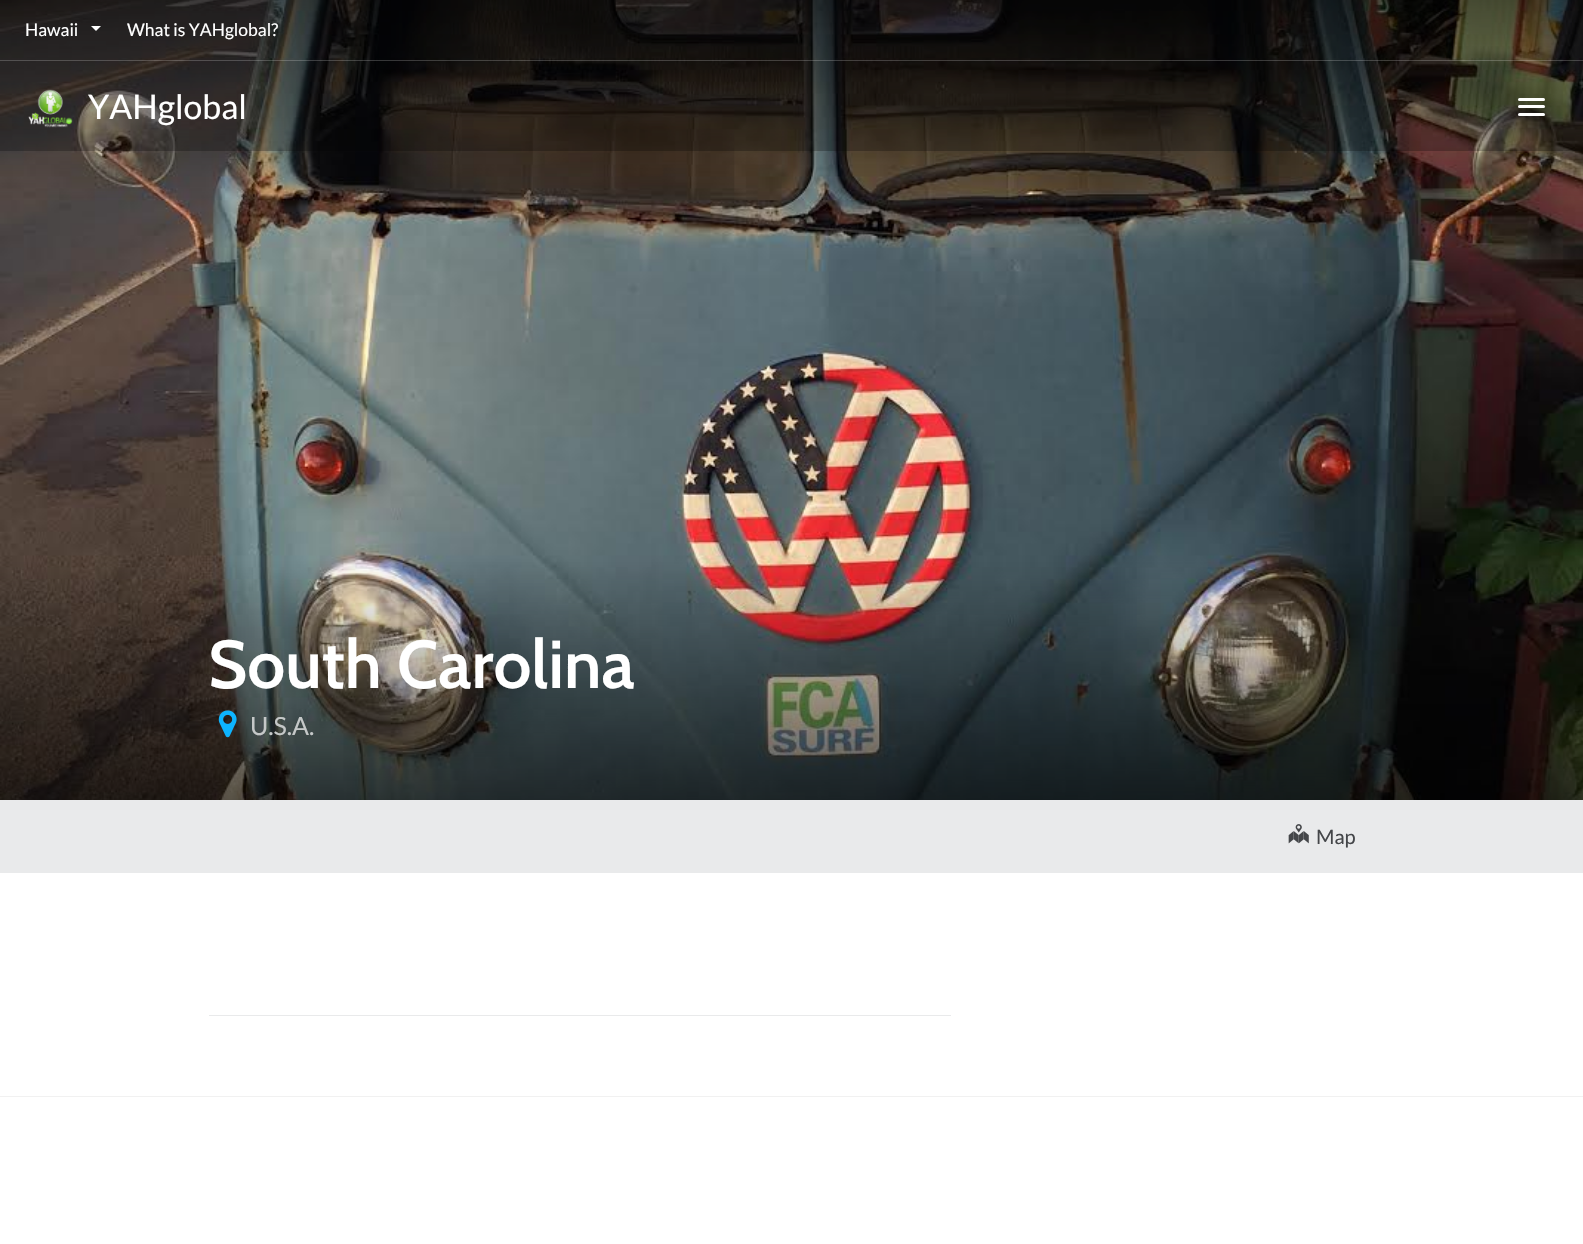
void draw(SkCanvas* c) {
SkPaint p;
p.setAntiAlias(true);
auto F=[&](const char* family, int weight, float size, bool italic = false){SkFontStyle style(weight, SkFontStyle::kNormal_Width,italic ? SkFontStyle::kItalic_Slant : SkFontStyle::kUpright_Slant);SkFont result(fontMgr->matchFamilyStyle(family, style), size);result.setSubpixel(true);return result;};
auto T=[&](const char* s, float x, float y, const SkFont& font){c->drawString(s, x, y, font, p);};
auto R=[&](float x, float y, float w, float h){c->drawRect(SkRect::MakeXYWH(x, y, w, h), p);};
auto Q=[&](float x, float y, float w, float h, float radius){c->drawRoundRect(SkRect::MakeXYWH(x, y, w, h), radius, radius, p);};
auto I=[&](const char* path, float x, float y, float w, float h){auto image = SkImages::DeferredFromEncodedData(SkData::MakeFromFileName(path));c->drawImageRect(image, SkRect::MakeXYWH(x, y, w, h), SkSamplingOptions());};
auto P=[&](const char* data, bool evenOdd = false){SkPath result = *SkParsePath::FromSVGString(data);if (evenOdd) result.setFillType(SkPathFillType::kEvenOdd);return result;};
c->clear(0xffffffff);
I("2.png",0,0,1583,800);
p.setColor(0x42000000);
R(0,0,1583,151);
p.setColor(0x33ffffff);
R(0,60,1583,1);
auto f1 = F("Lato",400,17.5);
p.setColor(0xffffffff);
T("Hawaii",25,36,f1);
c->drawPath(P("M91 26h10l-5 5z"),p);
T("What is YAHglobal?",127,36,f1);
I("1.png",28,89,45,39);
auto f2 = F("Lato",400,33.75);
T("YAHglobal",88,119,f2);
Q(1518,98,27,3,1.5);
Q(1518,105,27,3,1.5);
Q(1518,113,27,3,1.5);
auto f3 = F("Cabin",600,67.5);
T("South Carolina",208,688,f3);
I("3.png",218,710,19,28);
auto f4 = F("Lato",400,25);
p.setColor(0xffc5c8c8);
T("U.S.A.",250,735,f4);
p.setColor(0xffe9eaeb);
R(0,800,1583,73);
I("4.png",1288,824,21,20);
auto f5 = F("Lato",400,20);
p.setColor(0xff444649);
T("Map",1316,844,f5);
p.setColor(0xffe9eaeb);
R(209,1015,742,1);
p.setColor(0xfff1f1f1);
R(0,1096,1583,1);
}
